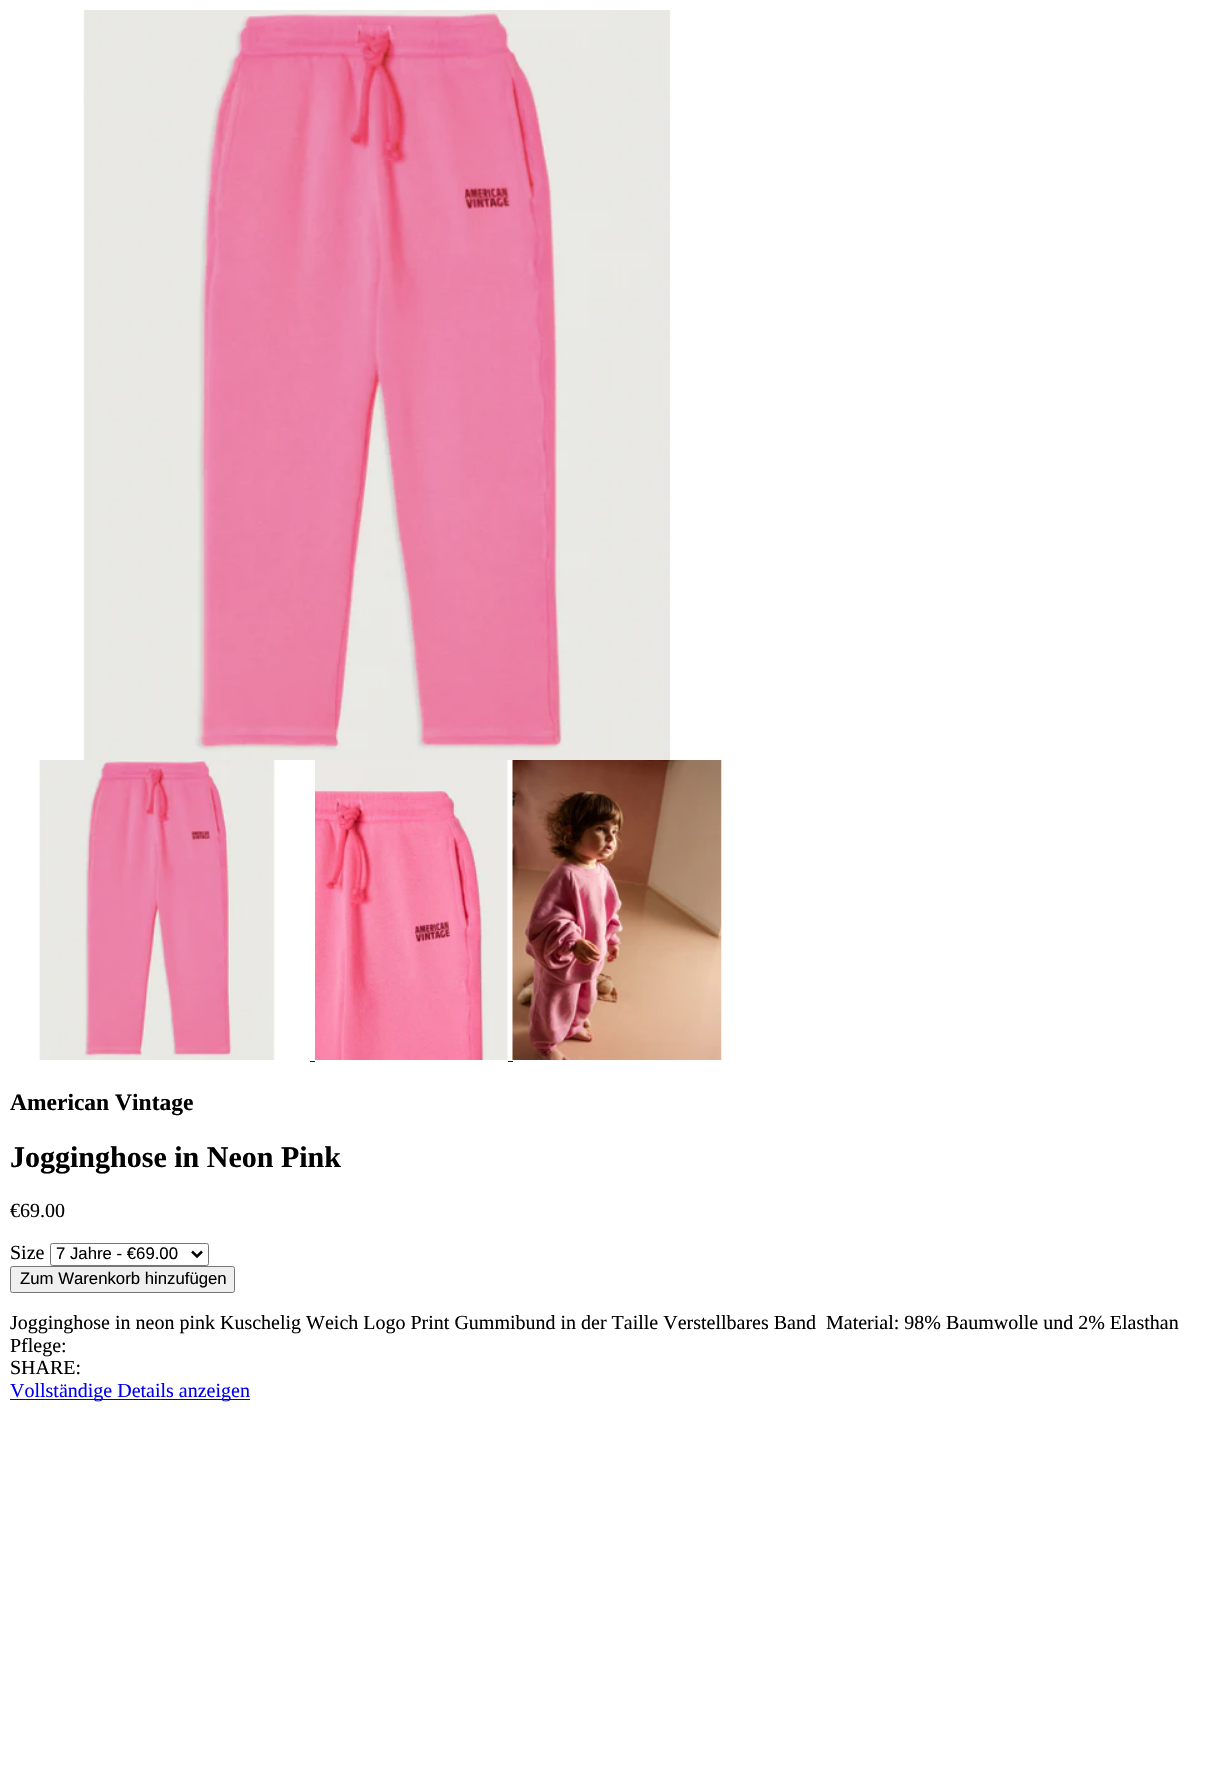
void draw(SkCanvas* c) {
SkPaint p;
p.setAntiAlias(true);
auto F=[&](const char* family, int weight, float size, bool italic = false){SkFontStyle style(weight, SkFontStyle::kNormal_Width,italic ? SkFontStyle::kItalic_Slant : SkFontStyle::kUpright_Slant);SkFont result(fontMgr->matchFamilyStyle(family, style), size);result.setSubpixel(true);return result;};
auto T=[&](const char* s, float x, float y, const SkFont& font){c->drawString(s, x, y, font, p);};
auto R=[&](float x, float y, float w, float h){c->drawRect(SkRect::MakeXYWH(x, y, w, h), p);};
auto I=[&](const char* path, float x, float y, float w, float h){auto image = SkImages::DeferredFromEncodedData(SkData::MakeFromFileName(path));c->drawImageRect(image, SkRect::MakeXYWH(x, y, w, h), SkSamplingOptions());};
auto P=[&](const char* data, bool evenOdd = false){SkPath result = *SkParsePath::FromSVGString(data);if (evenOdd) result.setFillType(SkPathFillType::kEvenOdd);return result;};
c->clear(0xffffffff);
I("1.png",83,10,588,750);
I("2.png",39,760,236,300);
I("3.png",315,760,193,300);
I("4.png",512,760,210,300);
p.setColor(0xff0000ee);
R(310,1061,5,1);
R(508,1061,5,1);
auto f1 = F("Liberation Serif",700,23.5);
p.setColor(0xff000000);
T("American Vintage",10,1110,f1);
auto f2 = F("Liberation Serif",700,30);
T("Jogginghose in Neon Pink",10,1167,f2);
auto f3 = F("Liberation Serif",400,20);
T("€69.00",10,1217,f3);
T("Size",10,1259,f3);
p.setStroke(true);
p.setStrokeWidth(1);
p.setColor(0xff767676);
c->drawRoundRect(SkRect::MakeXYWH(50.5,1243.5,158,22),2,2,p);
p.setStrokeWidth(2.5);
p.setColor(0xff000000);
c->drawPath(P("M192 1251.5l5 5l5-5"),p);
auto f4 = F("Liberation Sans",400,16.75);
p.setStroke(false);
T("7 Jahre - €69.00",56,1259,f4);
p.setColor(0xffefefef);
c->drawRoundRect(SkRect::MakeXYWH(10.5,1266.5,224,26),2,2,p);
p.setStroke(true);
p.setStrokeWidth(1);
p.setColor(0xff767676);
c->drawRoundRect(SkRect::MakeXYWH(10.5,1266.5,224,26),2,2,p);
p.setStroke(false);
p.setColor(0xff000000);
T("Zum Warenkorb hinzufügen",20,1284,f4);
T("Jogginghose in neon pink Kuschelig Weich Logo Print Gummibund in der Taille Verstellbares Band",10,1329,f3);
T("Material: 98% Baumwolle und 2% Elasthan",826,1329,f3);
T("Pflege:",10,1352,f3);
T("SHARE:",10,1374,f3);
p.setColor(0xff0000ee);
R(10,1399,240,1);
T("Vollständige Details anzeigen",10,1397,f3);
}
